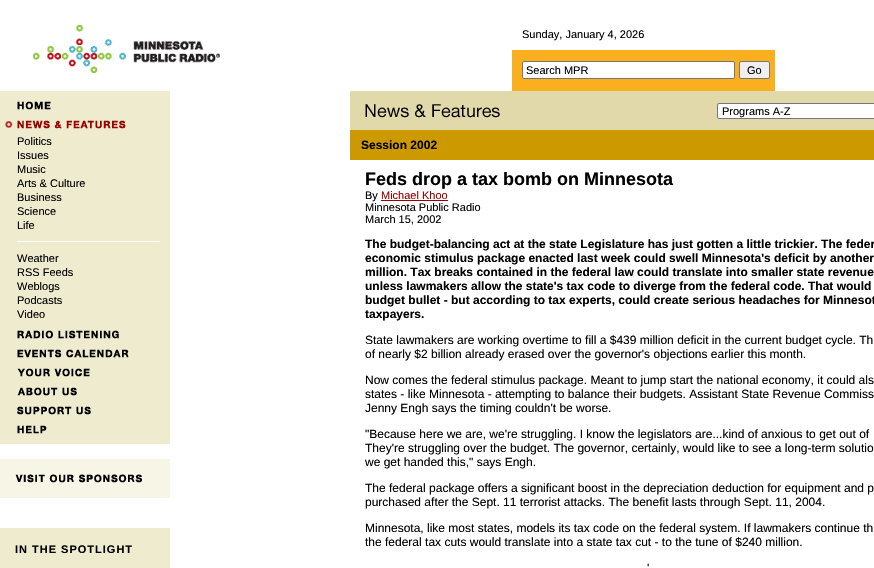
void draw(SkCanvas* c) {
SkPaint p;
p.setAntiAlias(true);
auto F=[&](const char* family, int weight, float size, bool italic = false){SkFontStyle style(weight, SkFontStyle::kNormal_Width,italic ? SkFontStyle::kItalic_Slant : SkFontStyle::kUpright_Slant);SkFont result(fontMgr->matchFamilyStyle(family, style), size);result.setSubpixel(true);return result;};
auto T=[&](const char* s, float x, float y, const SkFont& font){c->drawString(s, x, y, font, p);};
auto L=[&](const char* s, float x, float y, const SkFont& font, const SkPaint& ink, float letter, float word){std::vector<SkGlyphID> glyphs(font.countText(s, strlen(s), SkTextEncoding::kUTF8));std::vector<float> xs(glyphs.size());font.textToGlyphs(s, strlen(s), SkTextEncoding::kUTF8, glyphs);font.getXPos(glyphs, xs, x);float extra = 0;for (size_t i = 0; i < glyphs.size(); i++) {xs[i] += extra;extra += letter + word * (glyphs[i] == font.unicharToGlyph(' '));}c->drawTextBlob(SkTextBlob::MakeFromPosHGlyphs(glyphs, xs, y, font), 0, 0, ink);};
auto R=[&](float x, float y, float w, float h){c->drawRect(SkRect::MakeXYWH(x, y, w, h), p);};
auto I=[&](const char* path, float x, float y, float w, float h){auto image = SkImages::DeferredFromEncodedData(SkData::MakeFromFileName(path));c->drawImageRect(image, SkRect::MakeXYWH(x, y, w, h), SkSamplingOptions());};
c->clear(0xffffffff);
I("1.png",33,25,187,48);
auto f1 = F("Liberation Sans",400,11);
p.setColor(0xff000000);
T("Sunday, January 4, 2026",522,38,f1);
p.setColor(0xfffaaf1f);
R(512,50,263,41);
p.setColor(0xffffffff);
c->drawRoundRect(SkRect::MakeXYWH(522.5,61.5,212,17),1.5,1.5,p);
p.setStroke(true);
p.setStrokeWidth(1);
p.setColor(0xff767676);
c->drawRoundRect(SkRect::MakeXYWH(522.5,61.5,212,17),1.5,1.5,p);
p.setStroke(false);
p.setColor(0xff000000);
T("Search MPR",526,74,f1);
p.setColor(0xffefefef);
c->drawRoundRect(SkRect::MakeXYWH(739.5,61.5,30,17),1.5,1.5,p);
p.setStroke(true);
p.setColor(0xff767676);
c->drawRoundRect(SkRect::MakeXYWH(739.5,61.5,30,17),1.5,1.5,p);
p.setStroke(false);
p.setColor(0xff000000);
T("Go",747,74,f1);
p.setColor(0xffefebcf);
R(0,91,170,353);
I("2.png",17,101,34,9);
I("3.png",5,121,8,7);
I("4.png",17,120,109,9);
p.setColor(0xff000000);
T("Politics",17,145,f1);
T("Issues",17,159,f1);
T("Music",17,173,f1);
T("Arts & Culture",17,187,f1);
T("Business",17,201,f1);
T("Science",17,215,f1);
T("Life",17,229,f1);
p.setColor(0xffffffff);
R(17,241,143,1);
p.setColor(0xff000000);
T("Weather",17,262,f1);
T("RSS Feeds",17,276,f1);
T("Weblogs",17,290,f1);
T("Podcasts",17,304,f1);
T("Video",17,318,f1);
I("5.png",17,330,102,9);
I("6.png",17,349,112,9);
I("7.png",17,368,73,9);
I("8.png",17,387,60,9);
I("9.png",17,406,74,9);
I("10.png",17,425,30,9);
p.setColor(0xfff7f5e6);
R(0,459,170,39);
I("11.png",15,474,127,9);
p.setColor(0xffefebcf);
R(0,528,170,40);
auto f2 = F("Liberation Sans",700,11);
p.setColor(0xff000000);
L("IN THE SPOTLIGHT",15,553,f2,p,1,0);
p.setColor(0xffe1d9a9);
R(350,91,524,39);
I("12.png",365,104,135,14);
p.setColor(0xffffffff);
c->drawRoundRect(SkRect::MakeXYWH(717.5,103.5,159,15),1.5,1.5,p);
p.setStroke(true);
p.setColor(0xff767676);
c->drawRoundRect(SkRect::MakeXYWH(717.5,103.5,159,15),1.5,1.5,p);
p.setStroke(false);
p.setColor(0xff000000);
T("Programs A-Z",722,115,f1);
p.setColor(0xffcc9900);
R(350,130,524,30);
auto f3 = F("Liberation Sans",700,12);
p.setColor(0xff000000);
T("Session 2002",361,149,f3);
auto f4 = F("Liberation Sans",700,18);
T("Feds drop a tax bomb on Minnesota",365,185,f4);
T("By",365,199,f1);
p.setColor(0xff990000);
T("Michael Khoo",381,199,f1);
R(381,200,67,1);
p.setColor(0xff000000);
T("Minnesota Public Radio",365,211,f1);
T("March 15, 2002",365,223,f1);
T("The budget-balancing act at the state Legislature has just gotten a little trickier. The feder",365,248,f3);
T("economic stimulus package enacted last week could swell Minnesota's deficit by another",365,262,f3);
T("million. Tax breaks contained in the federal law could translate into smaller state revenue",365,276,f3);
T("unless lawmakers allow the state's tax code to diverge from the federal code. That would",365,290,f3);
T("budget bullet - but according to tax experts, could create serious headaches for Minnesot",365,304,f3);
T("taxpayers.",365,318,f3);
auto f5 = F("Liberation Sans",400,12);
T("State lawmakers are working overtime to fill a $439 million deficit in the current budget cycle. Th",365,344,f5);
T("of nearly $2 billion already erased over the governor's objections earlier this month.",365,358,f5);
T("Now comes the federal stimulus package. Meant to jump start the national economy, it could als",365,384,f5);
T("states - like Minnesota - attempting to balance their budgets. Assistant State Revenue Commiss",365,398,f5);
T("Jenny Engh says the timing couldn't be worse.",365,412,f5);
T("\"Because here we are, we're struggling. I know the legislators are...kind of anxious to get out of",365,438,f5);
T("They're struggling over the budget. The governor, certainly, would like to see a long-term solutio",365,452,f5);
T("we get handed this,\" says Engh.",365,466,f5);
T("The federal package offers a significant boost in the depreciation deduction for equipment and p",365,492,f5);
T("purchased after the Sept. 11 terrorist attacks. The benefit lasts through Sept. 11, 2004.",365,506,f5);
T("Minnesota, like most states, models its tax code on the federal system. If lawmakers continue th",365,532,f5);
T("the federal tax cuts would translate into a state tax cut - to the tune of $240 million.",365,546,f5);
T("'",647,572,f5);
}
